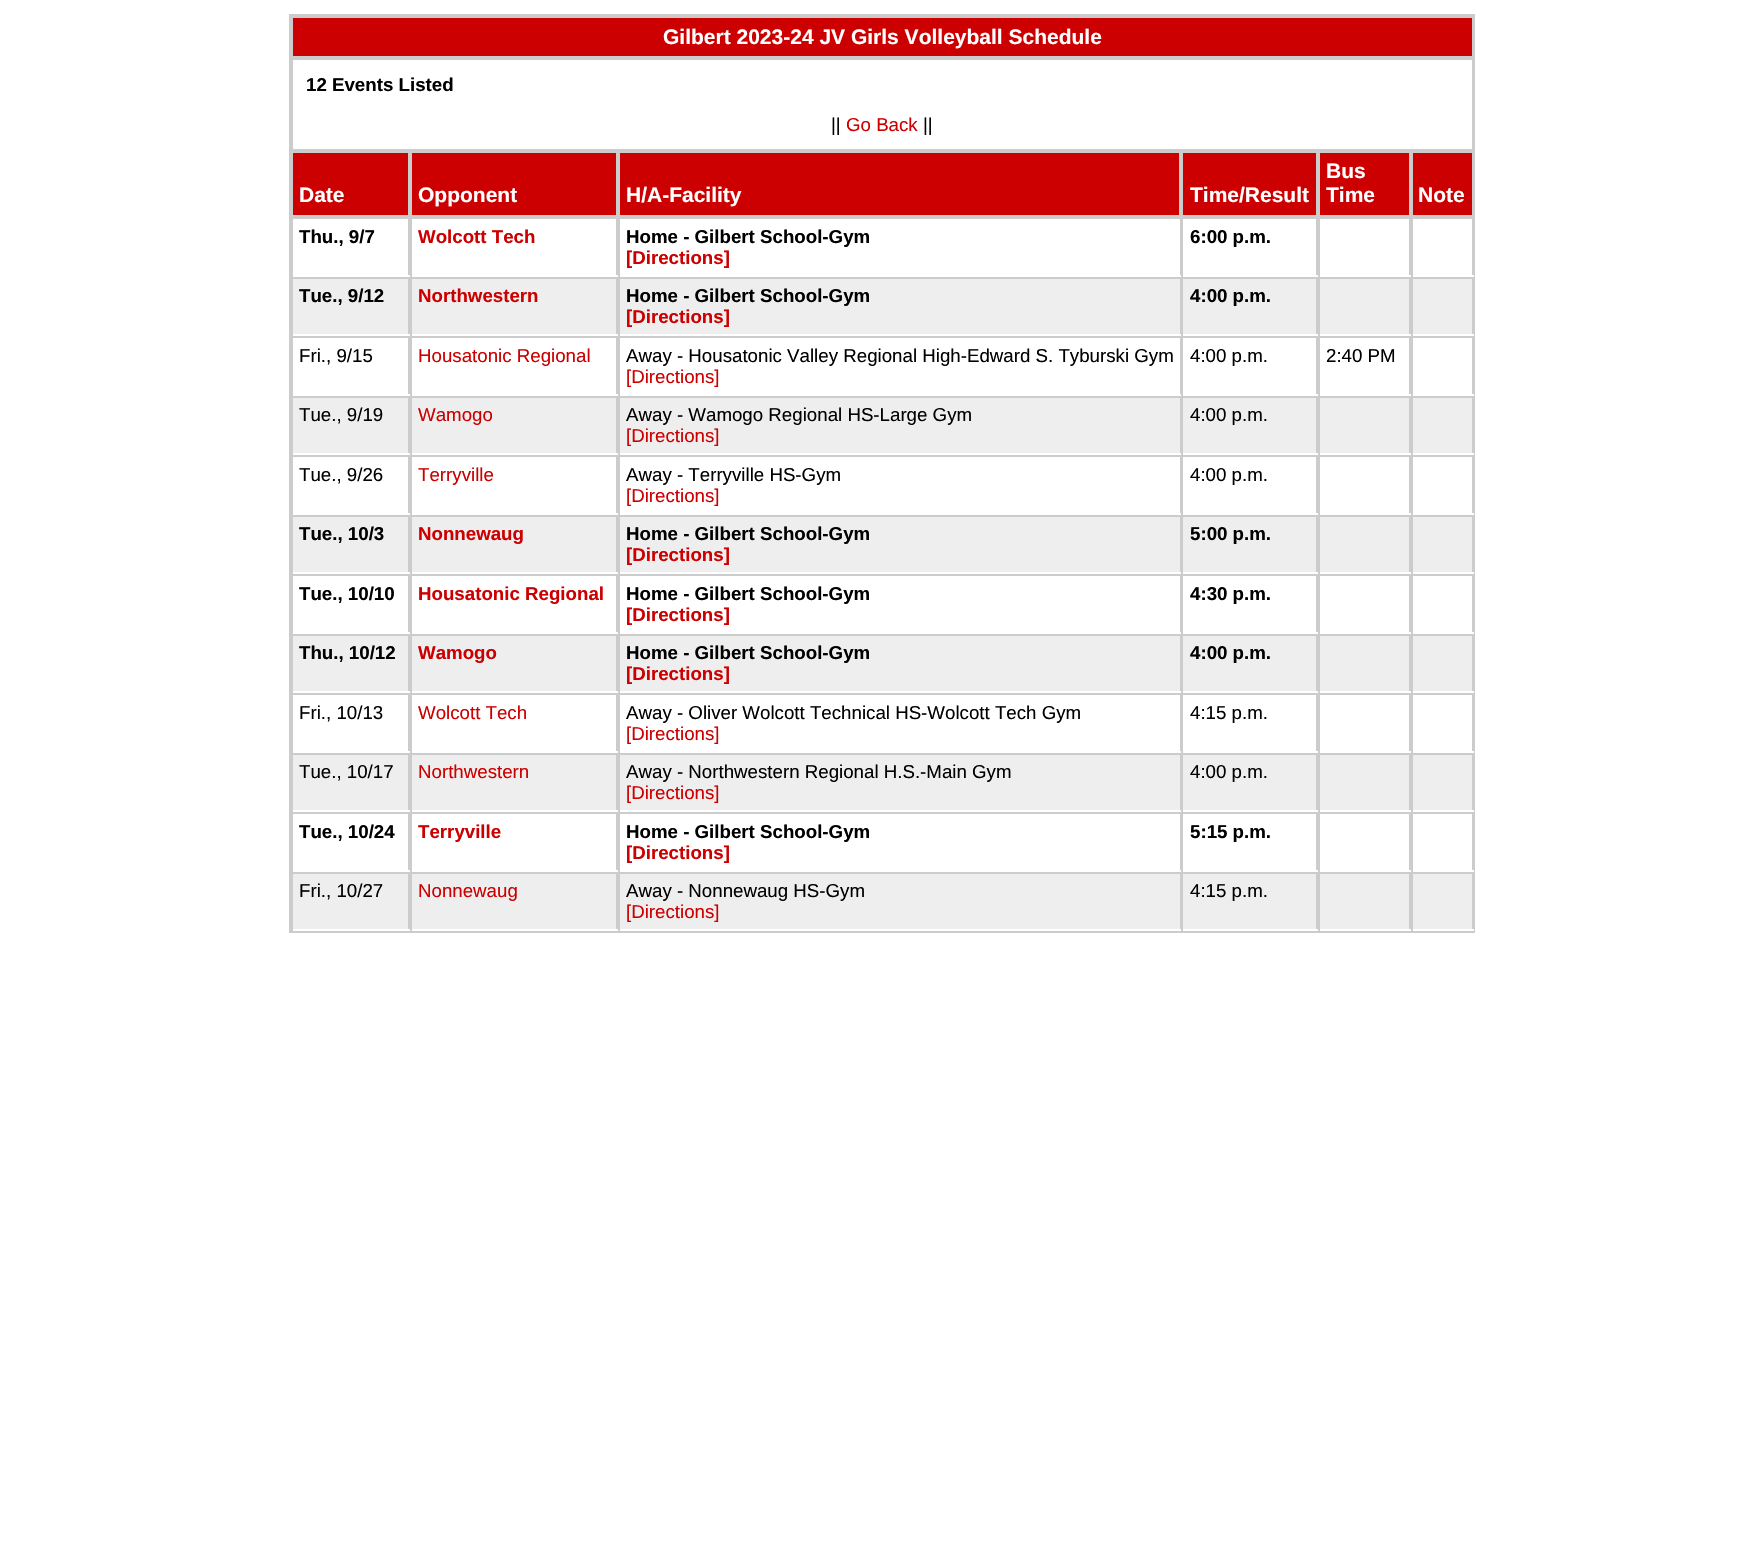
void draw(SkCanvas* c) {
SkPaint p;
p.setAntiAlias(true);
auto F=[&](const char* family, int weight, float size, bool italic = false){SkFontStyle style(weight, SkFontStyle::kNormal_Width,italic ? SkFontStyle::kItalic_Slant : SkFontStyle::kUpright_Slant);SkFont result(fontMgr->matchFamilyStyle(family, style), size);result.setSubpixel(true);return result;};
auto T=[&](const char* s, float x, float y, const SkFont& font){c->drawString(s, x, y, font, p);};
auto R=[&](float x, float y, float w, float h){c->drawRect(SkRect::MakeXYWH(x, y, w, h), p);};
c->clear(0xffffffff);
p.setColor(0xffcccccc);
R(289,14,1186,919);
p.setColor(0xffcc0000);
R(293,18,1179,38);
auto f1 = F("Liberation Sans",700,21);
p.setColor(0xffffffff);
T("Gilbert 2023-24 JV Girls Volleyball Schedule",663,44,f1);
R(293,60,1179,89);
auto f2 = F("Liberation Sans",700,18.7);
p.setColor(0xff000000);
T("12 Events Listed",306,91,f2);
auto f3 = F("Liberation Sans",400,18.7);
T("||",831,131,f3);
p.setColor(0xffcc0000);
T("Go Back",846,131,f3);
p.setColor(0xff000000);
T("||",923,131,f3);
p.setColor(0xffcc0000);
R(293,153,115,62);
p.setColor(0xffffffff);
T("Date",299,202,f1);
p.setColor(0xffcc0000);
R(412,153,204,62);
p.setColor(0xffffffff);
T("Opponent",418,202,f1);
p.setColor(0xffcc0000);
R(620,153,559,62);
p.setColor(0xffffffff);
T("H/A-Facility",626,202,f1);
p.setColor(0xffcc0000);
R(1183,153,133,62);
p.setColor(0xffffffff);
T("Time/Result",1190,202,f1);
p.setColor(0xffcc0000);
R(1320,153,89,62);
p.setColor(0xffffffff);
T("Bus",1326,178,f1);
T("Time",1326,202,f1);
p.setColor(0xffcc0000);
R(1413,153,59,62);
p.setColor(0xffffffff);
T("Note",1418,202,f1);
R(293,219,1179,56);
p.setColor(0xffcccccc);
R(1409,217,2,60);
p.setColor(0xffffffff);
R(1318,275,156,2);
p.setColor(0xffcccccc);
R(1318,217,2,60);
R(408,217,2,60);
p.setColor(0xffffffff);
R(291,275,119,2);
p.setColor(0xffcccccc);
R(291,275,2,2);
p.setColor(0xff000000);
T("Thu., 9/7",299,243,f2);
p.setColor(0xffcccccc);
R(616,217,2,60);
p.setColor(0xffffffff);
R(410,275,208,2);
p.setColor(0xffcccccc);
R(410,217,2,60);
p.setColor(0xffcc0000);
T("Wolcott Tech",418,243,f2);
p.setColor(0xffcccccc);
R(1180,217,1,60);
p.setColor(0xffffffff);
R(618,275,563,2);
p.setColor(0xffcccccc);
R(618,217,2,60);
p.setColor(0xff000000);
T("Home - Gilbert School-Gym",626,243,f2);
p.setColor(0xffcc0000);
T("[Directions]",626,264,f2);
p.setColor(0xffcccccc);
R(1316,217,2,60);
p.setColor(0xffffffff);
R(1181,275,137,2);
p.setColor(0xffcccccc);
R(1181,217,2,60);
p.setColor(0xff000000);
T("6:00 p.m.",1190,243,f2);
p.setColor(0xffcccccc);
R(1411,217,2,60);
p.setColor(0xffeeeeee);
R(293,279,1179,55);
p.setColor(0xffcccccc);
R(1409,277,2,59);
p.setColor(0xffffffff);
R(1318,334,156,2);
p.setColor(0xffcccccc);
R(1318,277,2,59);
R(408,277,2,59);
p.setColor(0xffffffff);
R(291,334,119,2);
p.setColor(0xffcccccc);
R(291,334,2,2);
p.setColor(0xff000000);
T("Tue., 9/12",299,302,f2);
p.setColor(0xffcccccc);
R(616,277,2,59);
p.setColor(0xffffffff);
R(410,334,208,2);
p.setColor(0xffcccccc);
R(410,277,2,59);
p.setColor(0xffcc0000);
T("Northwestern",418,302,f2);
p.setColor(0xffcccccc);
R(1180,277,1,59);
p.setColor(0xffffffff);
R(618,334,563,2);
p.setColor(0xffcccccc);
R(618,277,2,59);
p.setColor(0xff000000);
T("Home - Gilbert School-Gym",626,302,f2);
p.setColor(0xffcc0000);
T("[Directions]",626,323,f2);
p.setColor(0xffcccccc);
R(1316,277,2,59);
p.setColor(0xffffffff);
R(1181,334,137,2);
p.setColor(0xffcccccc);
R(1181,277,2,59);
p.setColor(0xff000000);
T("4:00 p.m.",1190,302,f2);
p.setColor(0xffcccccc);
R(1411,277,2,59);
p.setColor(0xffffffff);
R(293,338,1179,56);
p.setColor(0xffcccccc);
R(408,336,2,60);
p.setColor(0xffffffff);
R(291,394,119,2);
p.setColor(0xffcccccc);
R(291,394,2,2);
p.setColor(0xff000000);
T("Fri., 9/15",299,362,f3);
p.setColor(0xffcccccc);
R(616,336,2,60);
p.setColor(0xffffffff);
R(410,394,208,2);
p.setColor(0xffcccccc);
R(410,336,2,60);
p.setColor(0xffcc0000);
T("Housatonic Regional",418,362,f3);
p.setColor(0xffcccccc);
R(1180,336,1,60);
p.setColor(0xffffffff);
R(618,394,563,2);
p.setColor(0xffcccccc);
R(618,336,2,60);
p.setColor(0xff000000);
T("Away - Housatonic Valley Regional High-Edward S. Tyburski Gym",626,362,f3);
p.setColor(0xffcc0000);
T("[Directions]",626,383,f3);
p.setColor(0xffcccccc);
R(1316,336,2,60);
p.setColor(0xffffffff);
R(1181,394,137,2);
p.setColor(0xffcccccc);
R(1181,336,2,60);
p.setColor(0xff000000);
T("4:00 p.m.",1190,362,f3);
p.setColor(0xffcccccc);
R(1409,336,2,60);
p.setColor(0xffffffff);
R(1318,394,156,2);
p.setColor(0xffcccccc);
R(1318,336,2,60);
p.setColor(0xff000000);
T("2:40 PM",1326,362,f3);
p.setColor(0xffcccccc);
R(1411,336,2,60);
p.setColor(0xffeeeeee);
R(293,398,1179,55);
p.setColor(0xffcccccc);
R(1409,396,2,59);
p.setColor(0xffffffff);
R(1318,453,156,2);
p.setColor(0xffcccccc);
R(1318,396,2,59);
R(408,396,2,59);
p.setColor(0xffffffff);
R(291,453,119,2);
p.setColor(0xffcccccc);
R(291,453,2,2);
p.setColor(0xff000000);
T("Tue., 9/19",299,421,f3);
p.setColor(0xffcccccc);
R(616,396,2,59);
p.setColor(0xffffffff);
R(410,453,208,2);
p.setColor(0xffcccccc);
R(410,396,2,59);
p.setColor(0xffcc0000);
T("Wamogo",418,421,f3);
p.setColor(0xffcccccc);
R(1180,396,1,59);
p.setColor(0xffffffff);
R(618,453,563,2);
p.setColor(0xffcccccc);
R(618,396,2,59);
p.setColor(0xff000000);
T("Away - Wamogo Regional HS-Large Gym",626,421,f3);
p.setColor(0xffcc0000);
T("[Directions]",626,442,f3);
p.setColor(0xffcccccc);
R(1316,396,2,59);
p.setColor(0xffffffff);
R(1181,453,137,2);
p.setColor(0xffcccccc);
R(1181,396,2,59);
p.setColor(0xff000000);
T("4:00 p.m.",1190,421,f3);
p.setColor(0xffcccccc);
R(1411,396,2,59);
p.setColor(0xffffffff);
R(293,457,1179,56);
p.setColor(0xffcccccc);
R(1409,455,2,60);
p.setColor(0xffffffff);
R(1318,513,156,2);
p.setColor(0xffcccccc);
R(1318,455,2,60);
R(408,455,2,60);
p.setColor(0xffffffff);
R(291,513,119,2);
p.setColor(0xffcccccc);
R(291,513,2,2);
p.setColor(0xff000000);
T("Tue., 9/26",299,481,f3);
p.setColor(0xffcccccc);
R(616,455,2,60);
p.setColor(0xffffffff);
R(410,513,208,2);
p.setColor(0xffcccccc);
R(410,455,2,60);
p.setColor(0xffcc0000);
T("Terryville",418,481,f3);
p.setColor(0xffcccccc);
R(1180,455,1,60);
p.setColor(0xffffffff);
R(618,513,563,2);
p.setColor(0xffcccccc);
R(618,455,2,60);
p.setColor(0xff000000);
T("Away - Terryville HS-Gym",626,481,f3);
p.setColor(0xffcc0000);
T("[Directions]",626,502,f3);
p.setColor(0xffcccccc);
R(1316,455,2,60);
p.setColor(0xffffffff);
R(1181,513,137,2);
p.setColor(0xffcccccc);
R(1181,455,2,60);
p.setColor(0xff000000);
T("4:00 p.m.",1190,481,f3);
p.setColor(0xffcccccc);
R(1411,455,2,60);
p.setColor(0xffeeeeee);
R(293,517,1179,55);
p.setColor(0xffcccccc);
R(1409,515,2,59);
p.setColor(0xffffffff);
R(1318,572,156,2);
p.setColor(0xffcccccc);
R(1318,515,2,59);
R(408,515,2,59);
p.setColor(0xffffffff);
R(291,572,119,2);
p.setColor(0xffcccccc);
R(291,572,2,2);
p.setColor(0xff000000);
T("Tue., 10/3",299,540,f2);
p.setColor(0xffcccccc);
R(616,515,2,59);
p.setColor(0xffffffff);
R(410,572,208,2);
p.setColor(0xffcccccc);
R(410,515,2,59);
p.setColor(0xffcc0000);
T("Nonnewaug",418,540,f2);
p.setColor(0xffcccccc);
R(1180,515,1,59);
p.setColor(0xffffffff);
R(618,572,563,2);
p.setColor(0xffcccccc);
R(618,515,2,59);
p.setColor(0xff000000);
T("Home - Gilbert School-Gym",626,540,f2);
p.setColor(0xffcc0000);
T("[Directions]",626,561,f2);
p.setColor(0xffcccccc);
R(1316,515,2,59);
p.setColor(0xffffffff);
R(1181,572,137,2);
p.setColor(0xffcccccc);
R(1181,515,2,59);
p.setColor(0xff000000);
T("5:00 p.m.",1190,540,f2);
p.setColor(0xffcccccc);
R(1411,515,2,59);
p.setColor(0xffffffff);
R(293,576,1179,56);
p.setColor(0xffcccccc);
R(1409,574,2,60);
p.setColor(0xffffffff);
R(1318,632,156,2);
p.setColor(0xffcccccc);
R(1318,574,2,60);
R(408,574,2,60);
p.setColor(0xffffffff);
R(291,632,119,2);
p.setColor(0xffcccccc);
R(291,632,2,2);
p.setColor(0xff000000);
T("Tue., 10/10",299,600,f2);
p.setColor(0xffcccccc);
R(616,574,2,60);
p.setColor(0xffffffff);
R(410,632,208,2);
p.setColor(0xffcccccc);
R(410,574,2,60);
p.setColor(0xffcc0000);
T("Housatonic Regional",418,600,f2);
p.setColor(0xffcccccc);
R(1180,574,1,60);
p.setColor(0xffffffff);
R(618,632,563,2);
p.setColor(0xffcccccc);
R(618,574,2,60);
p.setColor(0xff000000);
T("Home - Gilbert School-Gym",626,600,f2);
p.setColor(0xffcc0000);
T("[Directions]",626,621,f2);
p.setColor(0xffcccccc);
R(1316,574,2,60);
p.setColor(0xffffffff);
R(1181,632,137,2);
p.setColor(0xffcccccc);
R(1181,574,2,60);
p.setColor(0xff000000);
T("4:30 p.m.",1190,600,f2);
p.setColor(0xffcccccc);
R(1411,574,2,60);
p.setColor(0xffeeeeee);
R(293,636,1179,55);
p.setColor(0xffcccccc);
R(1409,634,2,59);
p.setColor(0xffffffff);
R(1318,691,156,2);
p.setColor(0xffcccccc);
R(1318,634,2,59);
R(408,634,2,59);
p.setColor(0xffffffff);
R(291,691,119,2);
p.setColor(0xffcccccc);
R(291,691,2,2);
p.setColor(0xff000000);
T("Thu., 10/12",299,659,f2);
p.setColor(0xffcccccc);
R(616,634,2,59);
p.setColor(0xffffffff);
R(410,691,208,2);
p.setColor(0xffcccccc);
R(410,634,2,59);
p.setColor(0xffcc0000);
T("Wamogo",418,659,f2);
p.setColor(0xffcccccc);
R(1180,634,1,59);
p.setColor(0xffffffff);
R(618,691,563,2);
p.setColor(0xffcccccc);
R(618,634,2,59);
p.setColor(0xff000000);
T("Home - Gilbert School-Gym",626,659,f2);
p.setColor(0xffcc0000);
T("[Directions]",626,680,f2);
p.setColor(0xffcccccc);
R(1316,634,2,59);
p.setColor(0xffffffff);
R(1181,691,137,2);
p.setColor(0xffcccccc);
R(1181,634,2,59);
p.setColor(0xff000000);
T("4:00 p.m.",1190,659,f2);
p.setColor(0xffcccccc);
R(1411,634,2,59);
p.setColor(0xffffffff);
R(293,695,1179,56);
p.setColor(0xffcccccc);
R(1409,693,2,60);
p.setColor(0xffffffff);
R(1318,751,156,2);
p.setColor(0xffcccccc);
R(1318,693,2,60);
R(408,693,2,60);
p.setColor(0xffffffff);
R(291,751,119,2);
p.setColor(0xffcccccc);
R(291,751,2,2);
p.setColor(0xff000000);
T("Fri., 10/13",299,719,f3);
p.setColor(0xffcccccc);
R(616,693,2,60);
p.setColor(0xffffffff);
R(410,751,208,2);
p.setColor(0xffcccccc);
R(410,693,2,60);
p.setColor(0xffcc0000);
T("Wolcott Tech",418,719,f3);
p.setColor(0xffcccccc);
R(1180,693,1,60);
p.setColor(0xffffffff);
R(618,751,563,2);
p.setColor(0xffcccccc);
R(618,693,2,60);
p.setColor(0xff000000);
T("Away - Oliver Wolcott Technical HS-Wolcott Tech Gym",626,719,f3);
p.setColor(0xffcc0000);
T("[Directions]",626,740,f3);
p.setColor(0xffcccccc);
R(1316,693,2,60);
p.setColor(0xffffffff);
R(1181,751,137,2);
p.setColor(0xffcccccc);
R(1181,693,2,60);
p.setColor(0xff000000);
T("4:15 p.m.",1190,719,f3);
p.setColor(0xffcccccc);
R(1411,693,2,60);
p.setColor(0xffeeeeee);
R(293,755,1179,55);
p.setColor(0xffcccccc);
R(1409,753,2,59);
p.setColor(0xffffffff);
R(1318,810,156,2);
p.setColor(0xffcccccc);
R(1318,753,2,59);
R(408,753,2,59);
p.setColor(0xffffffff);
R(291,810,119,2);
p.setColor(0xffcccccc);
R(291,810,2,2);
p.setColor(0xff000000);
T("Tue., 10/17",299,778,f3);
p.setColor(0xffcccccc);
R(616,753,2,59);
p.setColor(0xffffffff);
R(410,810,208,2);
p.setColor(0xffcccccc);
R(410,753,2,59);
p.setColor(0xffcc0000);
T("Northwestern",418,778,f3);
p.setColor(0xffcccccc);
R(1180,753,1,59);
p.setColor(0xffffffff);
R(618,810,563,2);
p.setColor(0xffcccccc);
R(618,753,2,59);
p.setColor(0xff000000);
T("Away - Northwestern Regional H.S.-Main Gym",626,778,f3);
p.setColor(0xffcc0000);
T("[Directions]",626,799,f3);
p.setColor(0xffcccccc);
R(1316,753,2,59);
p.setColor(0xffffffff);
R(1181,810,137,2);
p.setColor(0xffcccccc);
R(1181,753,2,59);
p.setColor(0xff000000);
T("4:00 p.m.",1190,778,f3);
p.setColor(0xffcccccc);
R(1411,753,2,59);
p.setColor(0xffffffff);
R(293,814,1179,56);
p.setColor(0xffcccccc);
R(1409,812,2,60);
p.setColor(0xffffffff);
R(1318,870,156,2);
p.setColor(0xffcccccc);
R(1318,812,2,60);
R(408,812,2,60);
p.setColor(0xffffffff);
R(291,870,119,2);
p.setColor(0xffcccccc);
R(291,870,2,2);
p.setColor(0xff000000);
T("Tue., 10/24",299,838,f2);
p.setColor(0xffcccccc);
R(616,812,2,60);
p.setColor(0xffffffff);
R(410,870,208,2);
p.setColor(0xffcccccc);
R(410,812,2,60);
p.setColor(0xffcc0000);
T("Terryville",418,838,f2);
p.setColor(0xffcccccc);
R(1180,812,1,60);
p.setColor(0xffffffff);
R(618,870,563,2);
p.setColor(0xffcccccc);
R(618,812,2,60);
p.setColor(0xff000000);
T("Home - Gilbert School-Gym",626,838,f2);
p.setColor(0xffcc0000);
T("[Directions]",626,859,f2);
p.setColor(0xffcccccc);
R(1316,812,2,60);
p.setColor(0xffffffff);
R(1181,870,137,2);
p.setColor(0xffcccccc);
R(1181,812,2,60);
p.setColor(0xff000000);
T("5:15 p.m.",1190,838,f2);
p.setColor(0xffcccccc);
R(1411,812,2,60);
p.setColor(0xffeeeeee);
R(293,874,1179,55);
p.setColor(0xffcccccc);
R(1409,872,2,59);
p.setColor(0xffffffff);
R(1318,929,156,2);
p.setColor(0xffcccccc);
R(1318,872,2,59);
R(408,872,2,59);
p.setColor(0xffffffff);
R(291,929,119,2);
p.setColor(0xffcccccc);
R(291,929,2,2);
p.setColor(0xff000000);
T("Fri., 10/27",299,897,f3);
p.setColor(0xffcccccc);
R(616,872,2,59);
p.setColor(0xffffffff);
R(410,929,208,2);
p.setColor(0xffcccccc);
R(410,872,2,59);
p.setColor(0xffcc0000);
T("Nonnewaug",418,897,f3);
p.setColor(0xffcccccc);
R(1180,872,1,59);
p.setColor(0xffffffff);
R(618,929,563,2);
p.setColor(0xffcccccc);
R(618,872,2,59);
p.setColor(0xff000000);
T("Away - Nonnewaug HS-Gym",626,897,f3);
p.setColor(0xffcc0000);
T("[Directions]",626,918,f3);
p.setColor(0xffcccccc);
R(1316,872,2,59);
p.setColor(0xffffffff);
R(1181,929,137,2);
p.setColor(0xffcccccc);
R(1181,872,2,59);
p.setColor(0xff000000);
T("4:15 p.m.",1190,897,f3);
p.setColor(0xffcccccc);
R(1411,872,2,59);
}
